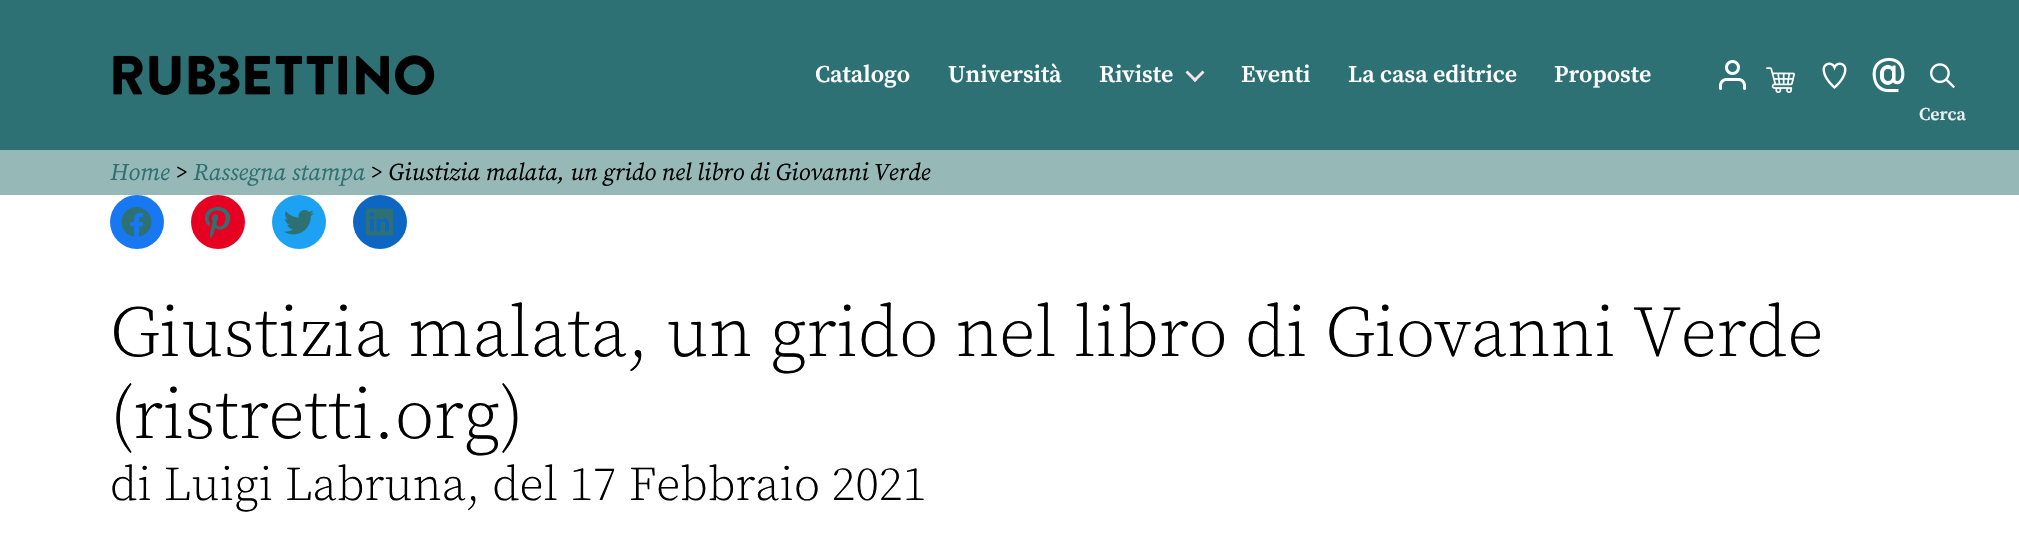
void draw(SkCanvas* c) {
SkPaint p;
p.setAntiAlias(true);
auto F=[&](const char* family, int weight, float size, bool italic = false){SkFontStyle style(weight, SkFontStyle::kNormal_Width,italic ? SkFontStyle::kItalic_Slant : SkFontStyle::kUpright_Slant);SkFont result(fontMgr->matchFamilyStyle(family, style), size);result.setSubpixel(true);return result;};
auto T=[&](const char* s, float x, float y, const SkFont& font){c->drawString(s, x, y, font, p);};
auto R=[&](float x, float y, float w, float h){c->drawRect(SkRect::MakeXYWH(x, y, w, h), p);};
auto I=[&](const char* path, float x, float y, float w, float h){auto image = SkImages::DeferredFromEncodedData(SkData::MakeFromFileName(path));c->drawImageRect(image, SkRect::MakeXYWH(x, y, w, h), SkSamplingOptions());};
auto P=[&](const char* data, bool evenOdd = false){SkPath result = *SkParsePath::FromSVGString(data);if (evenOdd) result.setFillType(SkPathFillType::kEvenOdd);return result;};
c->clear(0xffffffff);
p.setColor(0xff2e7174);
R(0,0,2019,150);
I("1.png",113,55,322,40);
auto f1 = F("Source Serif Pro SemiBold",600,24);
p.setColor(0xffffffff);
T("Catalogo",815,82,f1);
T("Università",948,82,f1);
T("Riviste",1099,82,f1);
p.setColor(0xfff8e2e7);
c->drawPath(P("M1185.5 72.5l2-2l9.5 9.5l-2 2z"),p);
c->drawPath(P("M1193 80l9.5-9.5l2 2l-9.5 9.5z"),p);
p.setColor(0xffffffff);
T("Eventi",1241,82,f1);
T("La casa editrice",1348,82,f1);
T("Proposte",1554,82,f1);
I("2.png",1719,60,27,30);
I("3.png",1766,67,29,26);
I("4.png",1822,62,25,27);
I("5.png",1872,57,33,36);
I("6.png",1930,63,25,26);
auto f2 = F("Source Serif Pro SemiBold",600,18);
p.setColor(0xffecf2f2);
T("Cerca",1919,120,f2);
p.setColor(0xff96b8b6);
R(0,150,2019,45);
auto f3 = F("Source Serif Pro",400,24,true);
p.setColor(0xff2e7174);
T("Home",110,180,f3);
p.setColor(0xff000000);
T(">",175,180,f3);
p.setColor(0xff2e7174);
T("Rassegna stampa",193,180,f3);
p.setColor(0xff000000);
T("> Giustizia malata, un grido nel libro di Giovanni Verde",370,180,f3);
p.setColor(0xff1778f2);
c->drawCircle(137,222,27,p);
I("7.png",121,207,31,30);
p.setColor(0xffe60122);
c->drawCircle(218,222,27,p);
I("8.png",204,207,27,32);
p.setColor(0xff1da1f2);
c->drawCircle(299,222,27,p);
I("9.png",284,210,30,25);
p.setColor(0xff0d66c2);
c->drawCircle(380,222,27,p);
I("10.png",366,208,27,28);
auto f4 = F("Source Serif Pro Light",300,72);
p.setColor(0xff000000);
T("Giustizia malata, un grido nel libro di Giovanni Verde",110,356,f4);
T("(ristretti.org)",110,438,f4);
auto f5 = F("Source Serif Pro Light",300,48);
T("di Luigi Labruna, del 17 Febbraio 2021",110,500,f5);
}
